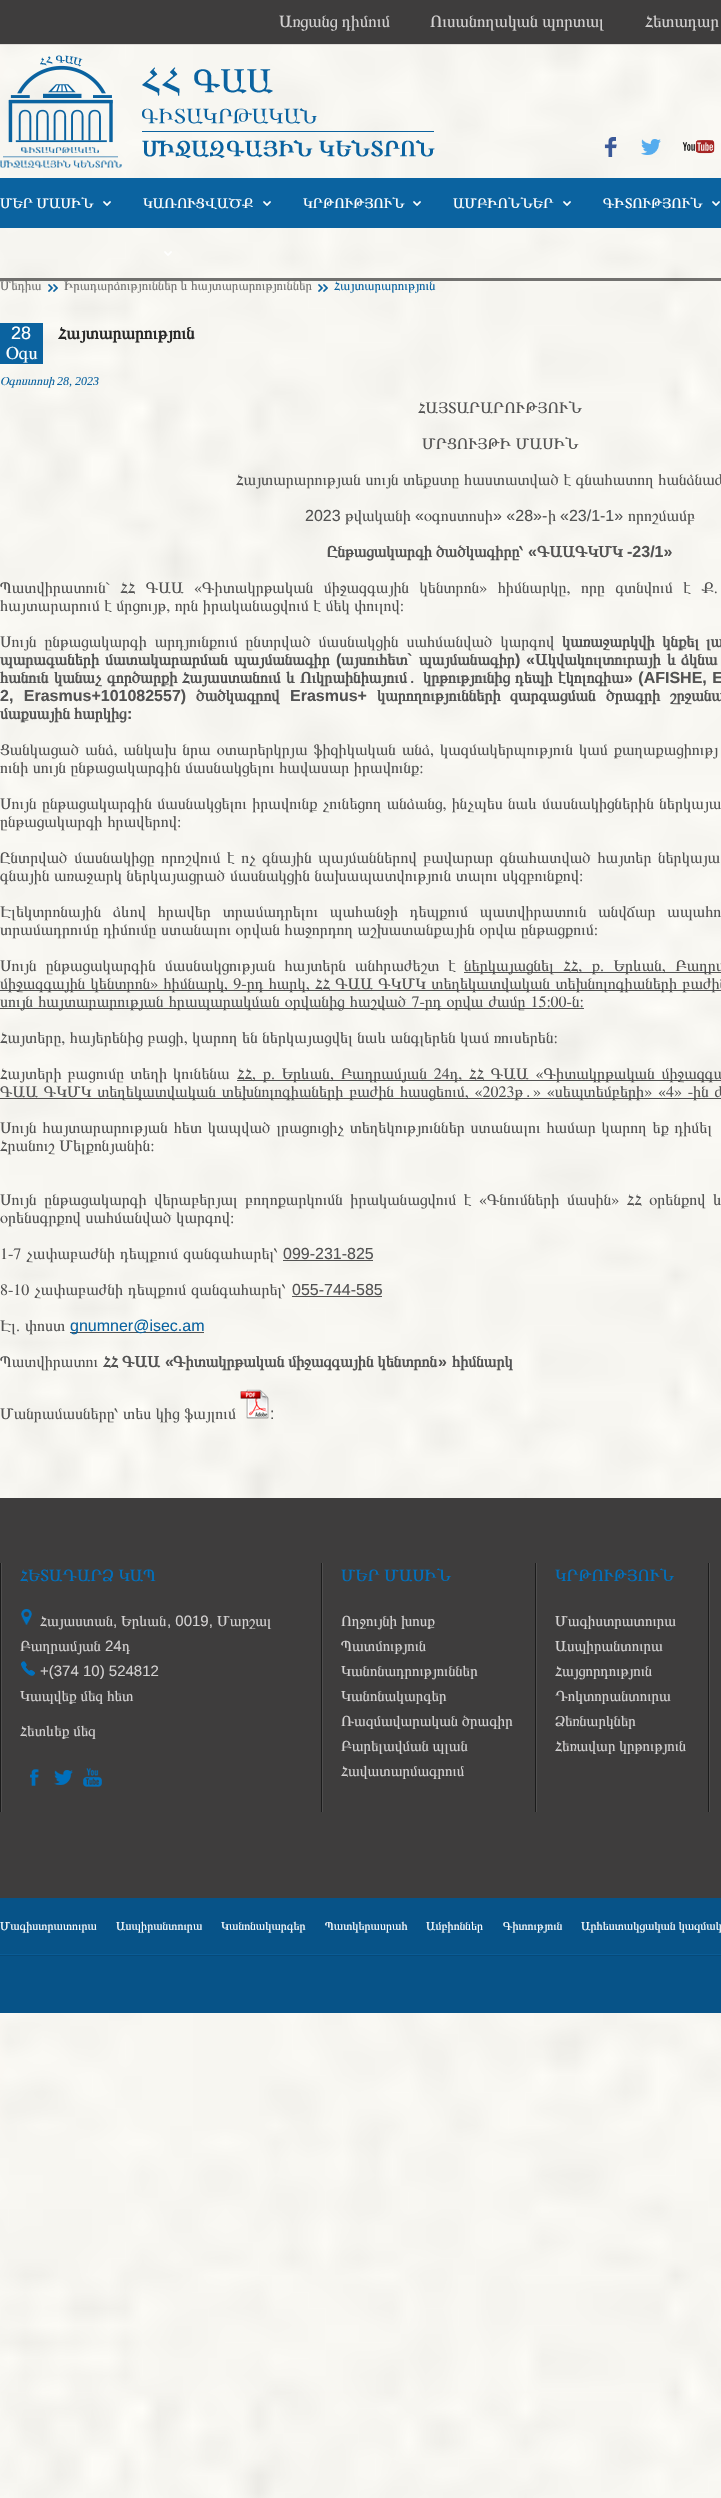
void draw(SkCanvas* c) {
SkPaint p;
p.setAntiAlias(true);
auto F=[&](const char* family, int weight, float size, bool italic = false){SkFontStyle style(weight, SkFontStyle::kNormal_Width,italic ? SkFontStyle::kItalic_Slant : SkFontStyle::kUpright_Slant);SkFont result(fontMgr->matchFamilyStyle(family, style), size);result.setSubpixel(true);return result;};
auto T=[&](const char* s, float x, float y, const SkFont& font){c->drawString(s, x, y, font, p);};
auto L=[&](const char* s, float x, float y, const SkFont& font, const SkPaint& ink, float letter, float word){std::vector<SkGlyphID> glyphs(font.countText(s, strlen(s), SkTextEncoding::kUTF8));std::vector<float> xs(glyphs.size());font.textToGlyphs(s, strlen(s), SkTextEncoding::kUTF8, glyphs);font.getXPos(glyphs, xs, x);float extra = 0;for (size_t i = 0; i < glyphs.size(); i++) {xs[i] += extra;extra += letter + word * (glyphs[i] == font.unicharToGlyph(' '));}c->drawTextBlob(SkTextBlob::MakeFromPosHGlyphs(glyphs, xs, y, font), 0, 0, ink);};
auto R=[&](float x, float y, float w, float h){c->drawRect(SkRect::MakeXYWH(x, y, w, h), p);};
auto I=[&](const char* path, float x, float y, float w, float h){auto image = SkImages::DeferredFromEncodedData(SkData::MakeFromFileName(path));c->drawImageRect(image, SkRect::MakeXYWH(x, y, w, h), SkSamplingOptions());};
c->clear(0xffffffff);
I("1.png",0,45,721,2453);
p.setColor(0xff3e3d3d);
R(0,0,721,44);
p.setColor(0xffdedbd8);
R(0,44,721,1);
auto f1 = F("FreeSerif",400,17);
p.setColor(0xffd3d1d1);
T("Առցանց դիմում",279,27,f1);
T("Ուսանողական պորտալ",430,27,f1);
L("Հետադար",645,27,f1,p,0,.5);
I("2.png",0,55,435,113);
I("3.png",604,137,13,20);
I("4.png",641,139,20,16);
I("5.png",682,140,33,14);
p.setColor(0xff0b63a0);
R(0,178,721,50);
I("6.png",103,201,8,5);
auto f2 = F("FreeSerif",400,14.5);
p.setColor(0xffffffff);
T("ՄԵՐ ՄԱՍԻՆ",0,208,f2);
I("6.png",263,201,8,5);
T("ԿԱՌՈՒՑՎԱԾՔ",143,208,f2);
I("6.png",413,201,8,5);
T("ԿՐԹՈՒԹՅՈՒՆ",303,208,f2);
I("6.png",563,201,8,5);
T("ԱՄԲԻՈՆՆԵՐ",453,208,f2);
I("6.png",712,201,8,5);
T("ԳԻՏՈՒԹՅՈՒՆ",603,208,f2);
I("7.png",164,251,8,5);
p.setColor(0x8a000000);
R(0,278,721,3);
auto f3 = F("FreeSerif",400,13);
p.setColor(0xff747474);
T("Մեդիա",0,290,f3);
I("8.png",48,284,10,8);
T("Իրադարձություններ և հայտարարություններ",64,290,f3);
I("9.png",318,284,10,8);
p.setColor(0xff0b63a0);
T("Հայտարարություն",334,290,f3);
R(0,323,43,41);
auto f4 = F("Liberation Sans",400,18);
p.setColor(0xffffffff);
T("28",11,339,f4);
auto f5 = F("FreeSerif",400,18);
T("Օգս",6,359,f5);
auto f6 = F("FreeSerif",700,17.5);
p.setColor(0xff282828);
T("Հայտարարություն",58,339,f6);
auto f7 = F("FreeSerif",400,12,true);
p.setColor(0xff0b63a0);
T("Օգոստոսի",0,385,f7);
auto f8 = F("Liberation Serif",400,12,true);
T("28, 2023",57,385,f8);
auto f9 = F("FreeSerif",400,16);
p.setColor(0xff535353);
T("ՀԱՅՏԱՐԱՐՈՒԹՅՈՒՆ",418,413,f9);
L("ՄՐՑՈՒՅԹԻ ՄԱՍԻՆ",422,449,f9,p,0,.5);
L("Հայտարարության սույն տեքստը հաստատված է գնահատող հանձնաժ",236,485,f9,p,0,.5);
auto f10 = F("Liberation Sans",400,16);
T("2023",305,521,f10);
T("թվականի",345,521,f9);
T("«",415,521,f10);
T("օգոստոսի",424,521,f9);
T("» «28»-",493,521,f10);
T("ի",548,521,f9);
T("«23/1-1»",560,521,f10);
T("որոշմամբ",628,521,f9);
auto f11 = F("FreeSerif",700,16);
T("Ընթացակարգի ծածկագիրը՝",327,557,f11);
auto f12 = F("Liberation Sans",700,16);
T("«",528,557,f12);
T("ԳԱԱԳԿՄԿ",537,557,f11);
T("-23/1»",627,557,f12);
L("Պատվիրատուն` ՀՀ ԳԱԱ «Գիտակրթական միջազգային կենտրոն» հիմնարկը, որը գտնվում է Ք.",0,593,f9,p,0,6.5);
L("հայտարարում է մրցույթ, որն իրականացվում է մեկ փուլով:",0,611,f9,p,0,.5);
L("Սույն ընթացակարգի արդյունքում ընտրված մասնակցին սահմանված կարգով",0,647,f9,p,0,3.75);
L("կառաջարկվի կնքել",562,647,f11,p,0,3.75);
L("լա",706,647,f11,p,0,3.75);
T("պարագաների",0,665,f11);
L("մատակարարման պայմանագիր",105,665,f11,p,0,2);
T("(",336,665,f12);
T("այսուհետ",341,665,f11);
T("`",407,665,f12);
T("պայմանագիր",419,665,f11);
T(")",515,665,f12);
T("«",526,665,f12);
T("Ակվակուլտուրայի",535,665,f11);
T("և",667,665,f11);
T("ձկնա",681,665,f11);
T("հանուն",0,683,f11);
T("կանաչ",54,683,f11);
T("գործարքի",107,683,f11);
T("Հայաստանում",182,683,f11);
T("և",286,683,f11);
T("Ուկրաինիայում․",300,683,f11);
T("կրթությունից",423,683,f11);
T("դեպի",515,683,f11);
T("էկոլոգիա",558,683,f11);
L("» (AFISHE, E",624,683,f12,p,0,1);
L("2, Erasmus+101082557)",0,701,f12,p,0,6);
T("ծածկագրով",196,701,f11);
T("Erasmus+",290,701,f12);
T("կարողությունների",377,701,f11);
T("զարգացման",510,701,f11);
T("ծրագրի",606,701,f11);
T("շրջանա",670,701,f11);
T("մաքսային",0,719,f11);
T("հարկից",74,719,f11);
T(":",127,719,f12);
L("Ցանկացած անձ, անկախ նրա օտարերկրյա ֆիզիկական անձ, կազմակերպություն կամ քաղաքացիությ",0,755,f9,p,0,2);
L("ունի սույն ընթացակարգին մասնակցելու հավասար իրավունք:",0,773,f9,p,0,.5);
L("Սույն ընթացակարգին մասնակցելու իրավունք չունեցող անձանց, ինչպես նաև մասնակիցներին ներկայա",0,809,f9,p,0,1.25);
L("ընթացակարգի հրավերով:",0,827,f9,p,0,1);
L("Ընտրված մասնակիցը որոշվում է ոչ գնային պայմաններով բավարար գնահատված հայտեր ներկայա",0,863,f9,p,0,2.5);
L("գնային առաջարկ ներկայացրած մասնակցին նախապատվություն տալու սկզբունքով։",0,881,f9,p,0,.5);
L("Էլեկտրոնային ձևով հրավեր տրամադրելու պահանջի դեպքում պատվիրատուն անվճար ապահո",0,917,f9,p,0,7.75);
L("տրամադրումը դիմումը ստանալու օրվան հաջորդող աշխատանքային օրվա ընթացքում։",0,935,f9,p,0,.5);
L("Սույն ընթացակարգին մասնակցության հայտերն անհրաժեշտ է",0,971,f9,p,0,5);
R(464,972,257,1);
L("ներկայացնել ՀՀ, ք. Երևան, Բաղրա",464,971,f9,p,0,5.5);
R(0,990,721,1);
L("միջազգային կենտրոն» հիմնարկ, 9-րդ հարկ, ՀՀ ԳԱԱ ԳԿՄԿ տեղեկատվական տեխնոլոգիաների բաժին",0,989,f9,p,0,1.25);
R(0,1008,584,1);
L("սույն հայտարարության հրապարակման օրվանից հաշված 7-րդ օրվա ժամը 15:00-ն:",0,1007,f9,p,0,1);
L("Հայտերը, հայերենից բացի, կարող են ներկայացվել նաև անգլերեն կամ ռուսերեն:",0,1043,f9,p,0,.5);
L("Հայտերի բացումը տեղի կունենա",0,1079,f9,p,0,2);
R(237,1080,484,1);
L("ՀՀ, ք. Երևան, Բաղրամյան 24դ, ՀՀ ԳԱԱ «Գիտակրթական միջազգա",237,1079,f9,p,0,2.75);
R(0,1098,721,1);
L("ԳԱԱ ԳԿՄԿ տեղեկատվական տեխնոլոգիաների բաժին հասցեում, «2023թ․» «սեպտեմբերի» «4» -ին ժ",0,1097,f9,p,0,1.75);
L("Սույն հայտարարության հետ կապված լրացուցիչ տեղեկություններ ստանալու համար կարող եք դիմել",0,1133,f9,p,0,1.75);
L("Հրանուշ Մելքոնյանին։",0,1151,f9,p,0,.5);
L("Սույն ընթացակարգի վերաբերյալ բողոքարկումն իրականացվում է «Գնումների մասին» ՀՀ օրենքով և",0,1205,f9,p,0,3.5);
L("օրենսգրքով սահմանված կարգով։",0,1223,f9,p,0,.5);
L("1-7 չափաբաժնի դեպքում զանգահարել՝",0,1259,f9,p,0,1);
T("099-231-825",283,1259,f10);
R(283,1260,90,1);
L("8-10 չափաբաժնի դեպքում զանգահարել՝",0,1295,f9,p,0,1);
T("055-744-585",292,1295,f10);
R(292,1296,90,1);
L("Էլ. փոստ",0,1331,f9,p,0,1);
R(70,1332,134,1);
p.setColor(0xff0b63a0);
T("gnumner@isec.am",70,1331,f10);
p.setColor(0xff535353);
T("Պատվիրատու",0,1367,f9);
T("ՀՀ ԳԱԱ",103,1367,f11);
T("«",165,1367,f12);
T("Գիտակրթական միջազգային կենտրոն",173,1367,f11);
T("»",438,1367,f12);
T("հիմնարկ",452,1367,f11);
L("Մանրամասները՝ տես կից ֆայլում",0,1419,f9,p,0,.5);
I("10.png",240,1389,29,30);
T(":",270,1419,f10);
p.setColor(0xff3e3d3d);
R(0,1498,721,400);
I("11.png",0,1563,2,249);
p.setColor(0xff0070bd);
L("ՀԵՏԱԴԱՐՁ ԿԱՊ",20,1581,f1,p,0,.5);
I("12.png",21,1609,11,16);
auto f13 = F("FreeSerif",400,15);
p.setColor(0xffd3d1d1);
T("Հայաստան",40,1626,f13);
auto f14 = F("Liberation Sans",400,15);
T(",",113,1626,f14);
T("Երևան",121,1626,f13);
T(", 0019,",167,1626,f14);
T("Մարշալ",217,1626,f13);
T("Բաղրամյան",20,1651,f13);
T("24",105,1651,f14);
T("դ",122,1651,f13);
I("13.png",21,1661,14,15);
T("+(374 10) 524812",40,1676,f14);
T("Կապվեք մեզ հետ",20,1701,f13);
T("Հետևեք մեզ",20,1736,f13);
I("14.png",30,1769,9,17);
I("15.png",54,1770,19,15);
I("16.png",83,1768,19,19);
I("11.png",321,1563,2,249);
p.setColor(0xff0070bd);
L("ՄԵՐ ՄԱՍԻՆ",341,1581,f1,p,0,.5);
p.setColor(0xffd3d1d1);
T("Ողջույնի խոսք",341,1626,f13);
T("Պատմություն",341,1651,f13);
T("Կանոնադրություններ",341,1676,f13);
T("Կանոնակարգեր",341,1701,f13);
T("Ռազմավարական ծրագիր",341,1726,f13);
T("Բարելավման պլան",341,1751,f13);
T("Հավատարմագրում",341,1776,f13);
I("11.png",535,1563,2,249);
p.setColor(0xff0070bd);
T("ԿՐԹՈՒԹՅՈՒՆ",555,1581,f1);
p.setColor(0xffd3d1d1);
T("Մագիստրատուրա",555,1626,f13);
T("Ասպիրանտուրա",555,1651,f13);
T("Հայցորդություն",555,1676,f13);
T("Դոկտորանտուրա",555,1701,f13);
T("Ձեռնարկներ",555,1726,f13);
T("Հեռավար կրթություն",555,1751,f13);
I("11.png",708,1563,2,249);
p.setColor(0xff075388);
R(0,1898,721,115);
p.setColor(0xff095c96);
R(0,1954,721,1);
auto f15 = F("FreeSerif",400,12);
p.setColor(0xffffffff);
T("Մագիստրատուրա",0,1930,f15);
T("Ասպիրանտուրա",116,1930,f15);
T("Կանոնակարգեր",221,1930,f15);
T("Պատկերասրահ",325,1930,f15);
T("Ամբիոններ",426,1930,f15);
T("Գիտություն",503,1930,f15);
T("Արհեստակցական կազմակ",581,1930,f15);
p.setColor(0xff074a79);
R(0,1955,721,1);
}
